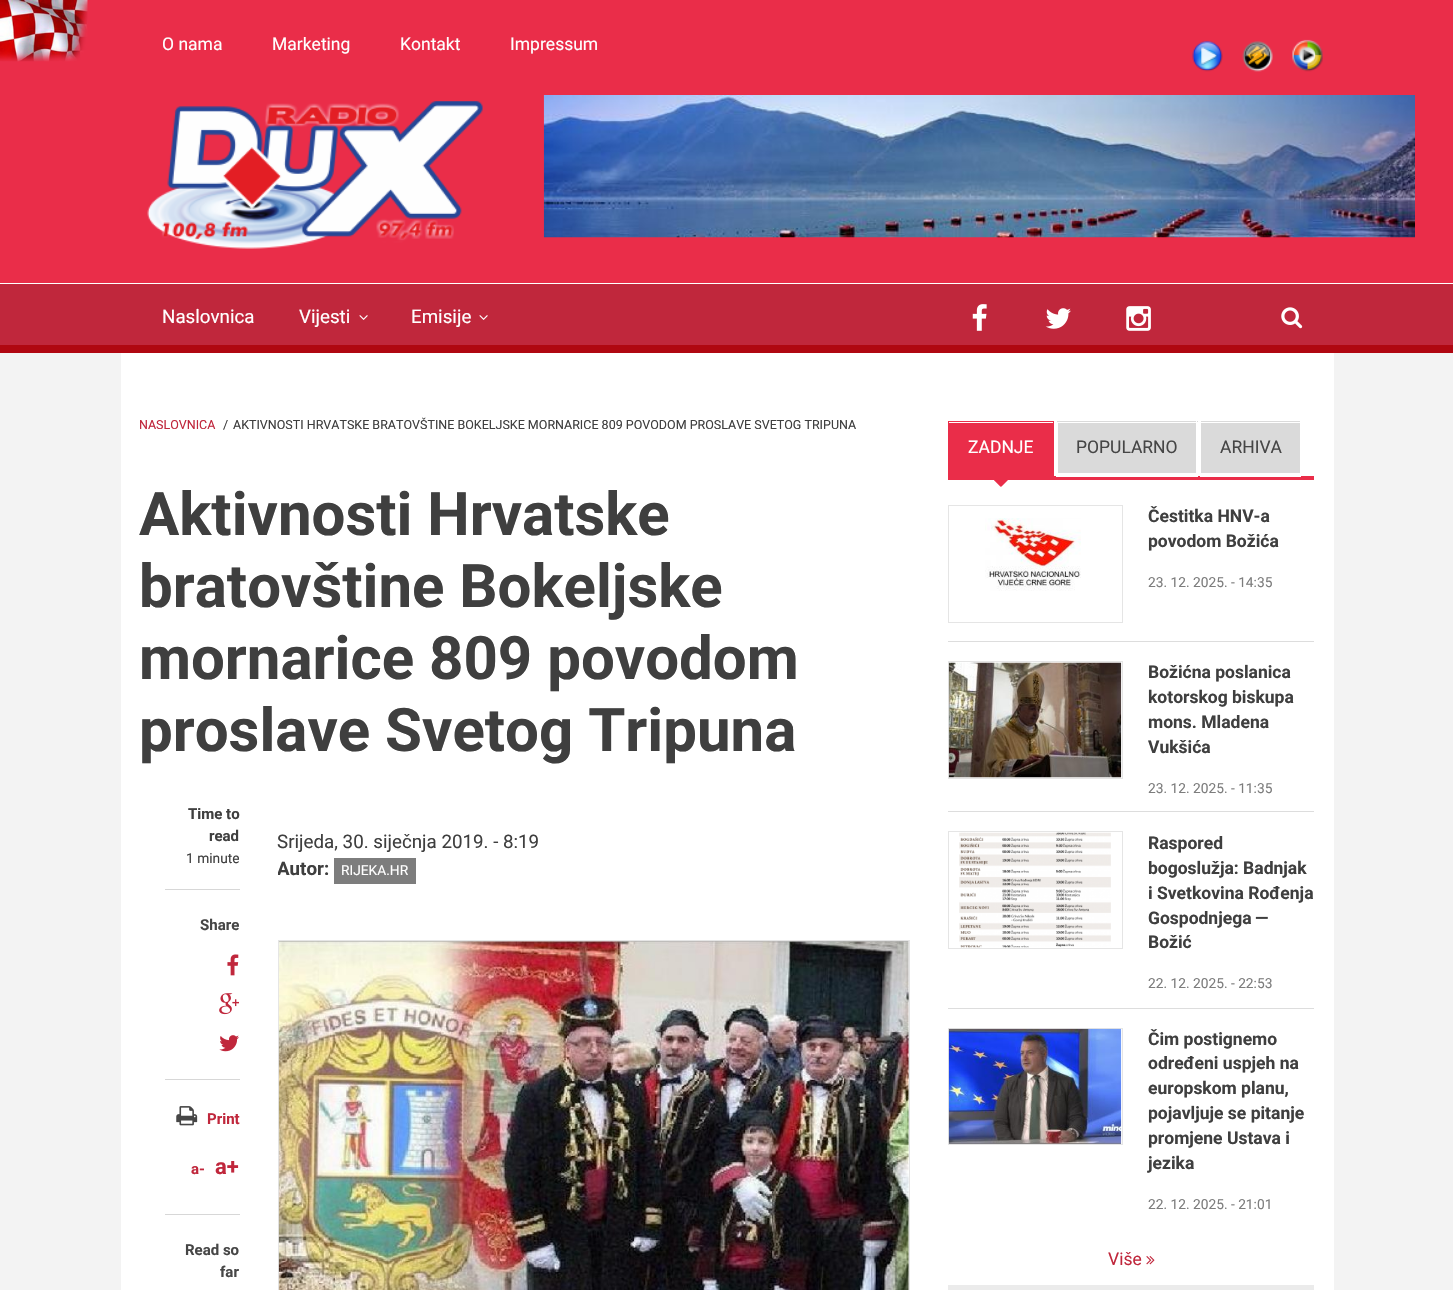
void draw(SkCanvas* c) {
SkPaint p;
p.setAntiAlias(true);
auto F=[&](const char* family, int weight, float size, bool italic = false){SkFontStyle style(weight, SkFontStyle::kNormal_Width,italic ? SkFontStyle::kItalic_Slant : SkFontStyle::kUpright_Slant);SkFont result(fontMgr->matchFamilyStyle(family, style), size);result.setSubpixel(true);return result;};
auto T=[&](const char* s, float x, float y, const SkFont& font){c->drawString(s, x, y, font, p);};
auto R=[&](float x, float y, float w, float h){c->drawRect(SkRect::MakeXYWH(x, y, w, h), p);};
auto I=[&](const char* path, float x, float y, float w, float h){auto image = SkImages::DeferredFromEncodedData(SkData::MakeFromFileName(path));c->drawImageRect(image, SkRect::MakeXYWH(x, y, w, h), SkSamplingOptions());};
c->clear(0xfff3f3f3);
p.setColor(0xffea2d49);
R(0,0,1453,283);
I("1.png",0,0,88,62);
auto f1 = F("Roboto",400,17.5);
p.setColor(0xffffffff);
T("O nama",162,50,f1);
T("Marketing",272,50,f1);
T("Kontakt",400,50,f1);
T("Impressum",510,50,f1);
I("2.png",1192,41,31,31);
I("3.png",1242,41,31,31);
I("4.png",1292,39,31,33);
R(0,283,1453,1);
I("5.png",147,101,336,148);
I("6.png",543,95,872,143);
p.setColor(0xffc0273c);
R(0,284,1453,61);
p.setColor(0xffb00711);
R(0,345,1453,8);
auto f2 = F("Roboto",400,18.75);
p.setColor(0xffffffff);
T("Naslovnica",162,323,f2);
T("Vijesti",299,323,f2);
I("7.png",359,315,9,5);
T("Emisije",411,323,f2);
I("7.png",479,315,9,5);
I("8.png",972,304,15,27);
I("9.png",1045,308,26,21);
I("10.png",1126,306,25,25);
I("11.png",1281,307,22,22);
R(121,353,1213,937);
auto f3 = F("Roboto",400,12.5);
p.setColor(0xffc0273c);
T("NASLOVNICA",139,429,f3);
p.setColor(0xff3f3f3f);
T("/",223,429,f3);
T("AKTIVNOSTI HRVATSKE BRATOVŠTINE BOKELJSKE MORNARICE 809 POVODOM PROSLAVE SVETOG TRIPUNA",233,429,f3);
auto f4 = F("Roboto",700,60);
T("Aktivnosti Hrvatske",139,535,f4);
T("bratovštine Bokeljske",139,607,f4);
T("mornarice 809 povodom",139,679,f4);
T("proslave Svetog Tripuna",139,751,f4);
p.setColor(0xffd7d7d7);
R(165,889,75,1);
auto f5 = F("Roboto",700,15);
p.setColor(0xff3f3f3f);
T("Time to",188,819,f5);
T("read",209,841,f5);
auto f6 = F("Roboto",400,13.75);
T("1 minute",186,863,f6);
p.setColor(0xffd7d7d7);
R(165,1079,75,1);
p.setColor(0xff464646);
T("Share",200,930,f5);
I("12.png",227,954,12,22);
I("13.png",219,993,20,22);
I("14.png",219,1035,20,17);
p.setColor(0xffd7d7d7);
R(165,1214,75,1);
I("15.png",176,1106,22,20);
p.setColor(0xffc0273c);
T("Print",207,1124,f5);
T("a-",191,1174,f5);
auto f7 = F("Roboto",700,22);
T("a+",215,1174,f7);
p.setColor(0xff464646);
T("Read so",185,1255,f5);
T("far",220,1277,f5);
p.setColor(0xff3f3f3f);
T("Srijeda, 30. siječnja 2019. - 8:19",277,848,f2);
c->save();
c->clipRect(SkRect::MakeXYWH(278,856,632,34));
auto f8 = F("Roboto",700,18.75);
T("Autor:",277,875,f8);
c->restore();
p.setColor(0xff7d7d7d);
R(334,858,82,26);
p.setColor(0xffffffff);
T("RIJEKA.HR",341,875,f6);
p.setStroke(true);
p.setStrokeWidth(1);
p.setColor(0xffe5e5e5);
c->drawRect(SkRect::MakeXYWH(278.5,940.5,631,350),p);
I("16.png",278,941,631,349);
p.setStroke(false);
p.setColor(0xffea2d49);
R(948,476,366,4);
R(949,423,104,50);
R(948,421,106,1);
R(1053,421,1,55);
R(948,473,106,3);
R(948,421,1,55);
p.setColor(0xffffffff);
T("ZADNJE",968,453,f1);
I("17.png",994,480,14,7);
p.setColor(0xffdadada);
R(1058,423,138,50);
R(1056,421,142,1);
p.setColor(0xffffffff);
R(1196,421,1,1);
R(1056,476,142,1);
R(1056,421,1,1);
p.setColor(0xff464646);
T("POPULARNO",1076,453,f1);
p.setColor(0xffdadada);
R(1201,423,99,50);
R(1200,421,101,1);
p.setColor(0xffffffff);
R(1300,421,1,1);
R(1200,476,101,1);
R(1200,421,1,1);
p.setColor(0xff464646);
T("ARHIVA",1220,453,f1);
p.setColor(0xffdddddd);
R(948,641,366,1);
p.setStroke(true);
p.setColor(0xffe5e5e5);
c->drawRect(SkRect::MakeXYWH(948.5,505.5,174,117),p);
I("18.png",985,518,96,73);
auto f9 = F("Roboto",700,17.5);
p.setStroke(false);
p.setColor(0xff3f3f3f);
T("Čestitka HNV-a",1148,522,f9);
T("povodom Božića",1148,547,f9);
p.setColor(0xff7d7d7d);
T("23. 12. 2025. - 14:35",1148,587,f6);
p.setColor(0xffdddddd);
R(948,811,366,1);
p.setStroke(true);
p.setColor(0xffe5e5e5);
c->drawRect(SkRect::MakeXYWH(948.5,661.5,174,117),p);
I("19.png",948,662,174,116);
p.setStroke(false);
p.setColor(0xff3f3f3f);
T("Božićna poslanica",1148,678,f9);
T("kotorskog biskupa",1148,703,f9);
T("mons. Mladena",1148,728,f9);
T("Vukšića",1148,753,f9);
p.setColor(0xff7d7d7d);
T("23. 12. 2025. - 11:35",1148,793,f6);
p.setColor(0xffdddddd);
R(948,1008,366,1);
p.setStroke(true);
p.setColor(0xffe5e5e5);
c->drawRect(SkRect::MakeXYWH(948.5,831.5,174,117),p);
I("20.png",959,832,152,116);
p.setStroke(false);
p.setColor(0xff3f3f3f);
T("Raspored",1148,849,f9);
T("bogoslužja: Badnjak",1148,874,f9);
T("i Svetkovina Rođenja",1148,899,f9);
T("Gospodnjega —",1148,924,f9);
T("Božić",1148,948,f9);
p.setColor(0xff7d7d7d);
T("22. 12. 2025. - 22:53",1148,988,f6);
p.setStroke(true);
p.setColor(0xffe5e5e5);
c->drawRect(SkRect::MakeXYWH(948.5,1028.5,174,116),p);
I("21.png",948,1028,174,116);
p.setStroke(false);
p.setColor(0xff3f3f3f);
T("Čim postignemo",1148,1045,f9);
T("određeni uspjeh na",1148,1069,f9);
T("europskom planu,",1148,1094,f9);
T("pojavljuje se pitanje",1148,1119,f9);
T("promjene Ustava i",1148,1144,f9);
T("jezika",1148,1169,f9);
p.setColor(0xff7d7d7d);
T("22. 12. 2025. - 21:01",1148,1209,f6);
p.setColor(0xffebebeb);
R(948,1285,366,5);
p.setColor(0xffc0273c);
T("Više",1108,1265,f1);
I("22.png",1146,1256,9,9);
}
